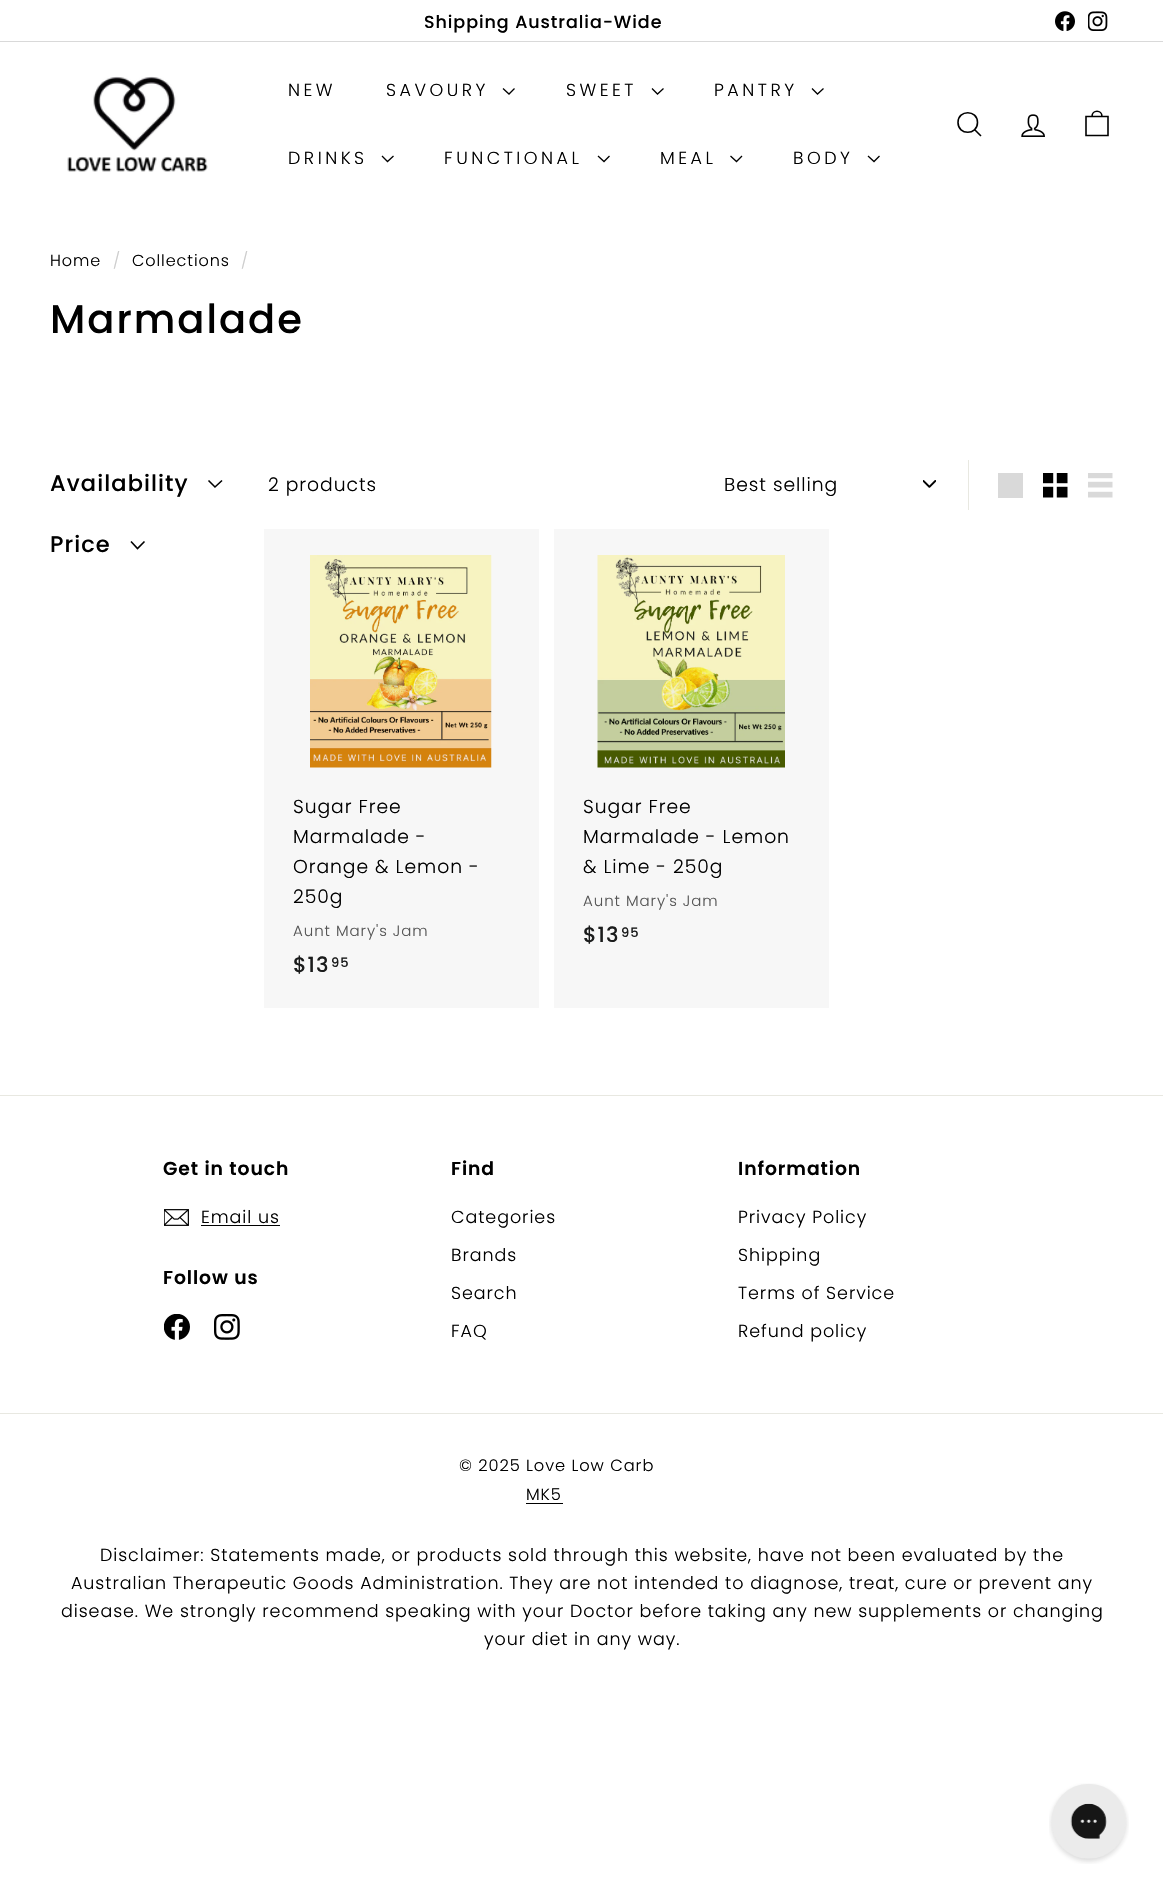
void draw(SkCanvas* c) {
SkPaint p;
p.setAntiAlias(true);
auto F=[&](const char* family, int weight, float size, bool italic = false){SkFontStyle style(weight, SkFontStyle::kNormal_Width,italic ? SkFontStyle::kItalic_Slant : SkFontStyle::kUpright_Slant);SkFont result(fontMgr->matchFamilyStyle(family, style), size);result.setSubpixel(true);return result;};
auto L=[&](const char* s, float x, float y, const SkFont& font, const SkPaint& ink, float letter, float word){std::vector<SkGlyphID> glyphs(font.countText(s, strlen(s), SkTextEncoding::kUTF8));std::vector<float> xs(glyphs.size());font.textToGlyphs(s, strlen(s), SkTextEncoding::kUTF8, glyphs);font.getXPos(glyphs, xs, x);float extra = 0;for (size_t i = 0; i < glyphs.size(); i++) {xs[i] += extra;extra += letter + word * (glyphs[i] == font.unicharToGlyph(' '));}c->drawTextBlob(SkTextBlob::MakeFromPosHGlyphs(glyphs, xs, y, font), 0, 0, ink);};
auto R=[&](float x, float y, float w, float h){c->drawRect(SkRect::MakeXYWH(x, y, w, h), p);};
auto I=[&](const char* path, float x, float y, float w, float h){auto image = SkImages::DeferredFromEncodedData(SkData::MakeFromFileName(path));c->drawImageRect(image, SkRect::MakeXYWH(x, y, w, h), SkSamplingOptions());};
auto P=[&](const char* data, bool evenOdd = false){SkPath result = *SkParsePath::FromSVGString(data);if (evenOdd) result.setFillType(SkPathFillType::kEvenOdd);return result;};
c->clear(0xffffffff);
p.setColor(0xfff7f7f7);
R(554,529,275,479);
R(264,529,275,479);
auto f1 = F("Poppins",500,17.5);
p.setColor(0xff000000);
L("Shipping Australia-Wide",424,28,f1,p,.94,0);
I("1.png",1055,11,20,20);
I("2.png",1088,11,20,20);
p.setColor(0xffd9d9d9);
R(0,41,1163,1);
I("3.png",67,76,141,96);
auto f2 = F("Poppins",300,17.5);
p.setColor(0xff000000);
L("NEW",288,96,f2,p,3.5,0);
L("SAVOURY",386,96,f2,p,3.5,0);
p.setStroke(true);
p.setStrokeWidth(1.3);
c->drawPath(P("M503 88.5l6 5.5l5.5-5.5"),p);
p.setStroke(false);
L("SWEET",566,96,f2,p,3.5,0);
p.setStroke(true);
c->drawPath(P("M652 88.5l5.5 5.5l6-5.5"),p);
p.setStroke(false);
L("PANTRY",714,96,f2,p,3.5,0);
p.setStroke(true);
c->drawPath(P("M812 88.5l5.5 5.5l6-5.5"),p);
p.setStroke(false);
L("DRINKS",288,164,f2,p,3.5,0);
p.setStroke(true);
c->drawPath(P("M382 156l5.5 5.5l6-5.5"),p);
p.setStroke(false);
L("FUNCTIONAL",444,164,f2,p,3.5,0);
p.setStroke(true);
c->drawPath(P("M598 156l6 5.5l5.5-5.5"),p);
p.setStroke(false);
L("MEAL",660,164,f2,p,3.5,0);
p.setStroke(true);
c->drawPath(P("M730.5 156l6 5.5l5.5-5.5"),p);
p.setStroke(false);
L("BODY",793,164,f2,p,3.5,0);
p.setStroke(true);
c->drawPath(P("M868 156l6 5.5l5.5-5.5"),p);
p.setStrokeWidth(1.6);
c->drawPath(P("M977.5 122.5c0 13-19.5 13-19.5 0c0-13 19.5-13 19.5 0m3.5 13.5l-6.5-6.5"),p);
I("4.png",1021,114,24,23);
c->drawPath(P("M1092 116.5c0-7 10-7 10 0m-16 0h22v19h-22z"),p);
auto f3 = F("Poppins",300,16);
p.setStroke(false);
L("Home",50,266,f3,p,.94,0);
p.setColor(0xffcccccc);
L("/",113,266,f3,p,.94,0);
p.setColor(0xff000000);
L("Collections",132,266,f3,p,.94,0);
p.setColor(0xffcccccc);
L("/",241,266,f3,p,.94,0);
auto f4 = F("Poppins",500,40);
p.setColor(0xff000000);
L("Marmalade",50,333,f4,p,2,0);
auto f5 = F("Poppins",500,22.5);
L("Availability",50,491,f5,p,1.1,0);
p.setStroke(true);
c->drawPath(P("M208.5 480.5l6.5 6.5l7-6.5"),p);
p.setStroke(false);
L("Price",50,552,f5,p,1.1,0);
p.setStroke(true);
c->drawPath(P("M131 541.5l6.5 7l7-7"),p);
auto f6 = F("Poppins",300,18.75);
p.setStroke(false);
L("2 products",268,491,f6,p,.94,0);
p.setColor(0xffe8e8e1);
R(968,460,1,50);
I("5.png",923,480,13,8);
p.setColor(0xff000000);
L("Best selling",724,491,f6,p,.94,0);
p.setColor(0xffd9d9d9);
R(998,473,25,25);
I("6.png",1043,473,25,25);
I("7.png",1088,473,25,25);
I("8.png",310,555,182,213);
p.setColor(0xff000000);
L("Sugar Free",293,813,f6,p,.94,0);
L("Marmalade -",293,843,f6,p,.94,0);
L("Orange & Lemon -",293,873,f6,p,.94,0);
L("250g",293,903,f6,p,.94,0);
auto f7 = F("Poppins",300,15);
p.setColor(0xff565656);
L("Aunt Mary's Jam",293,936,f7,p,.94,0);
auto f8 = F("Poppins",500,21);
p.setColor(0xff1b1c1c);
L("$13",293,972,f8,p,.94,0);
auto f9 = F("Poppins",500,13);
L("95",331,967,f9,p,.94,0);
I("9.png",597,555,188,213);
p.setColor(0xff000000);
L("Sugar Free",583,813,f6,p,.94,0);
L("Marmalade - Lemon",583,843,f6,p,.94,0);
L("& Lime - 250g",583,873,f6,p,.94,0);
p.setColor(0xff565656);
L("Aunt Mary's Jam",583,906,f7,p,.94,0);
p.setColor(0xff1b1c1c);
L("$13",583,942,f8,p,.94,0);
L("95",621,937,f9,p,.94,0);
p.setColor(0xffe8e8e1);
R(0,1095,1163,1);
auto f10 = F("Poppins",600,18.75);
p.setColor(0xff000000);
L("Get in touch",163,1175,f10,p,.94,0);
I("10.png",164,1209,25,17);
L("Email us",201,1223,f2,p,.94,0);
R(201,1225,79,1);
L("Follow us",163,1284,f10,p,.94,0);
I("11.png",164,1314,26,26);
I("12.png",214,1314,26,26);
L("Find",451,1175,f10,p,.94,0);
L("Categories",451,1223,f2,p,.94,0);
L("Brands",451,1261,f2,p,.94,0);
L("Search",451,1299,f2,p,.94,0);
L("FAQ",451,1337,f2,p,.94,0);
L("Information",738,1175,f10,p,.94,0);
L("Privacy Policy",738,1223,f2,p,.94,0);
L("Shipping",738,1261,f2,p,.94,0);
L("Terms of Service",738,1299,f2,p,.94,0);
L("Refund policy",738,1337,f2,p,.94,0);
p.setColor(0xffe8e8e1);
R(0,1413,1163,1);
auto f11 = F("Poppins",300,16.25);
p.setColor(0xff000000);
L("© 2025 Love Low Carb",459,1471,f11,p,.94,0);
L("MK5",526,1500,f11,p,.94,0);
R(526,1503,37,1);
L("Disclaimer: Statements made, or products sold through this website, have not been evaluated by the",100,1561,f2,p,.94,0);
L("Australian Therapeutic Goods Administration. They are not intended to diagnose, treat, cure or prevent any",71,1589,f2,p,.94,0);
L("disease. We strongly recommend speaking with your Doctor before taking any new supplements or changing",61,1617,f2,p,.94,0);
L("your diet in any way.",484,1645,f2,p,.94,0);
I("13.png",1049,1783,80,81);
}
